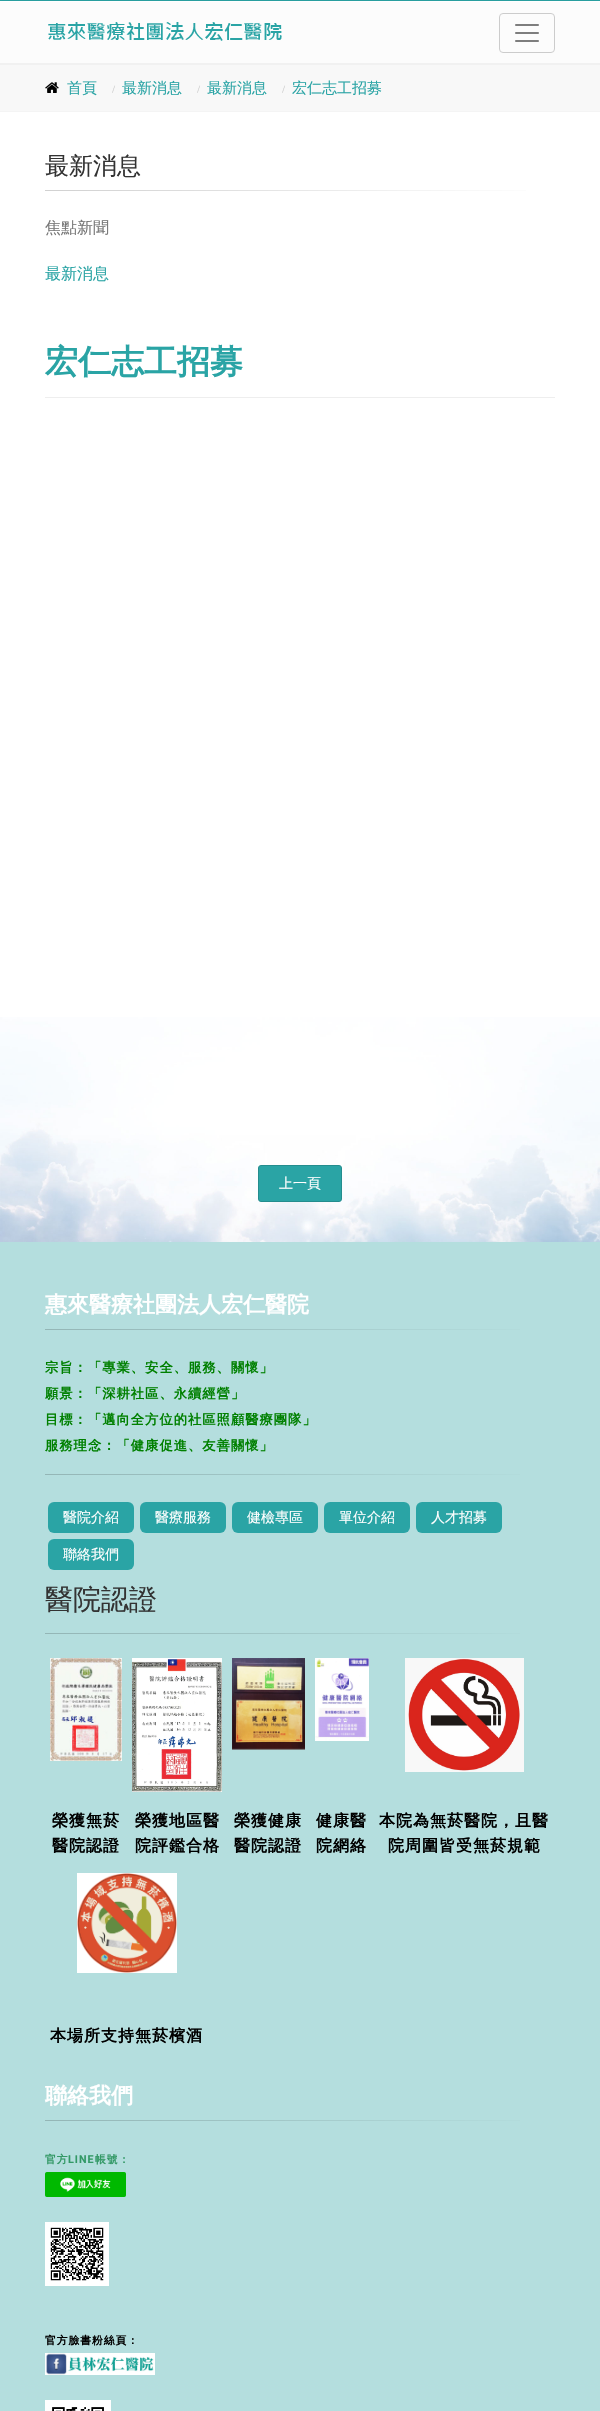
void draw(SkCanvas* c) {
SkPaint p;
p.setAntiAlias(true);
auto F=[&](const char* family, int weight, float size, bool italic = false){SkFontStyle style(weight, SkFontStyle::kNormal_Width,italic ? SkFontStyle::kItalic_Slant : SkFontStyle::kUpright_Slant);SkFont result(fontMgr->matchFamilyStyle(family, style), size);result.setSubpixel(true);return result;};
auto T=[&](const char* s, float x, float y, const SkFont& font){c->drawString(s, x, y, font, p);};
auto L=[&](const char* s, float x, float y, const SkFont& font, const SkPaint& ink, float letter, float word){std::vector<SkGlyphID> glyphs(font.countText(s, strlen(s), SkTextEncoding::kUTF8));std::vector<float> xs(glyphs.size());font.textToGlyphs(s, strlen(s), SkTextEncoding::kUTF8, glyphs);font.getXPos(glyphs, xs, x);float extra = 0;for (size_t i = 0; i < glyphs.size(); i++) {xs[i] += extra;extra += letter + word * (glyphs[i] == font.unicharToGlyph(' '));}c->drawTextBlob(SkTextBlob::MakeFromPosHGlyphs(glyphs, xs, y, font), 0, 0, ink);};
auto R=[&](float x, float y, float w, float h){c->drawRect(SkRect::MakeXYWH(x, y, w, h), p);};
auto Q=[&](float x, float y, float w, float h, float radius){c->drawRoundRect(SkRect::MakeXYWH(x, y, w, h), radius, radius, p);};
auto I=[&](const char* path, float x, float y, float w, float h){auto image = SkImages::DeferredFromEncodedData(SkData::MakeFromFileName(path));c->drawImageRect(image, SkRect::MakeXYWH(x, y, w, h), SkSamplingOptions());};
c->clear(0xff2aa4a5);
p.setColor(0x33000000);
p.setMaskFilter(SkMaskFilter::MakeBlur(kNormal_SkBlurStyle, 5));
c->drawRect(SkRect::MakeXYWH(1,5,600,64),p);
p.setMaskFilter(nullptr);
p.setColor(0xfffcfcfc);
R(0,2,600,61);
p.setColor(0xffffffff);
R(0,1,600,1);
p.setColor(0xfff1f1f1);
R(0,63,600,2);
I("1.png",48,22,234,19);
p.setStroke(true);
p.setStrokeWidth(1);
p.setColor(0xffcccccc);
c->drawRoundRect(SkRect::MakeXYWH(499.5,13.5,55,39),3.5,3.5,p);
I("2.png",515,24,24,18);
p.setStroke(false);
p.setColor(0xfff8f8f8);
R(0,65,600,46);
p.setColor(0xfff4f4f4);
R(0,111,600,1);
I("3.png",45,82,14,11);
auto f1 = F("WenQuanYi Zen Hei",500,15);
p.setColor(0xff2aa4a5);
T("首頁",67,93,f1);
auto f2 = F("Liberation Serif",400,11);
p.setColor(0xffcccccc);
T("/",112,93,f2);
p.setColor(0xff2aa4a5);
T("最新消息",122,93,f1);
p.setColor(0xffcccccc);
T("/",197,93,f2);
p.setColor(0xff2aa4a5);
T("最新消息",207,93,f1);
p.setColor(0xffcccccc);
T("/",282,93,f2);
p.setColor(0xff2aa4a5);
T("宏仁志工招募",292,93,f1);
p.setColor(0xffffffff);
R(0,112,600,905);
I("4.png",0,1017,600,225);
auto f3 = F("WenQuanYi Zen Hei",500,24);
p.setColor(0xff333333);
T("最新消息",45,174,f3);
{
const SkColor colors[] = {0xffd1d1d1,0xffe0e0e0,0xfff2f2f2,0xffffffff};
const float stops[] = {0,.35,.7,1};
const SkPoint ends[] = {{45,191}, {555,190}};
p.setShader(SkGradientShader::MakeLinear(ends, colors, stops, 4, SkTileMode::kClamp));
p.setAlpha(255);
}
R(45,190,481,1);
auto f4 = F("WenQuanYi Zen Hei",500,16);
p.setShader(nullptr);
p.setColor(0xff777777);
T("焦點新聞",45,233,f4);
p.setColor(0xff2aa4a5);
T("最新消息",45,279,f4);
auto f5 = F("WenQuanYi Zen Hei",700,33);
T("宏仁志工招募",45,373,f5);
p.setColor(0xffeeeeee);
R(45,397,510,1);
p.setColor(0xff2aa4a5);
c->drawRoundRect(SkRect::MakeXYWH(258.5,1165.5,83,36),2.5,2.5,p);
p.setStroke(true);
p.setColor(0xff248d8e);
c->drawRoundRect(SkRect::MakeXYWH(258.5,1165.5,83,36),2.5,2.5,p);
auto f6 = F("WenQuanYi Zen Hei",500,14);
p.setStroke(false);
p.setColor(0xffffffff);
T("上一頁",279,1188,f6);
p.setColor(0xffb4dede);
R(0,1242,600,1169);
auto f7 = F("WenQuanYi Zen Hei",700,22);
p.setColor(0xffffffff);
T("惠來醫療社團法人宏仁醫院",45,1312,f7);
{
const SkColor colors[] = {0xff94b6b6,0xff9ec3c3,0xffabd3d3,0xffb4dede};
const float stops[] = {0,.35,.7,1};
const SkPoint ends[] = {{45,1330}, {555,1330}};
p.setShader(SkGradientShader::MakeLinear(ends, colors, stops, 4, SkTileMode::kClamp));
p.setAlpha(255);
}
R(45,1329,475,1);
auto f8 = F("WenQuanYi Zen Hei",700,13.3);
p.setShader(nullptr);
p.setColor(0xff008000);
L("宗旨：「專業、安全、服務、關懷」",45,1372,f8,p,1,0);
L("願景：「深耕社區、永續經營」",45,1398,f8,p,1,0);
L("目標：「邁向全方位的社區照顧醫療團隊」",45,1424,f8,p,1,0);
L("服務理念：「健康促進、友善關懷」",45,1450,f8,p,1,0);
{
const SkColor colors[] = {0xff94b6b6,0xff9ec3c3,0xffabd3d3,0xffb4dede};
const float stops[] = {0,.35,.7,1};
const SkPoint ends[] = {{45,1475}, {555,1475}};
p.setShader(SkGradientShader::MakeLinear(ends, colors, stops, 4, SkTileMode::kClamp));
p.setAlpha(255);
}
R(45,1474,475,1);
p.setShader(nullptr);
p.setColor(0xff2aa4a5);
Q(48,1502,86,31,6);
p.setColor(0xffffffff);
T("醫院介紹",63,1522,f6);
p.setColor(0xff2aa4a5);
Q(140,1502,86,31,6);
p.setColor(0xffffffff);
T("醫療服務",155,1522,f6);
p.setColor(0xff2aa4a5);
Q(232,1502,86,31,6);
p.setColor(0xffffffff);
T("健檢專區",247,1522,f6);
p.setColor(0xff2aa4a5);
Q(324,1502,86,31,6);
p.setColor(0xffffffff);
T("單位介紹",339,1522,f6);
p.setColor(0xff2aa4a5);
Q(416,1502,86,31,6);
p.setColor(0xffffffff);
T("人才招募",431,1522,f6);
p.setColor(0xff2aa4a5);
Q(48,1539,86,31,6);
p.setColor(0xffffffff);
T("聯絡我們",63,1559,f6);
auto f9 = F("WenQuanYi Zen Hei",500,28);
p.setColor(0xff333333);
T("醫院認證",45,1609,f9);
{
const SkColor colors[] = {0xff94b6b6,0xff9ec3c3,0xffabd3d3,0xffb4dede};
const float stops[] = {0,.35,.7,1};
const SkPoint ends[] = {{45,1634}, {555,1634}};
p.setShader(SkGradientShader::MakeLinear(ends, colors, stops, 4, SkTileMode::kClamp));
p.setAlpha(255);
}
R(45,1633,475,1);
I("5.png",50,1658,72,103);
auto f10 = F("WenQuanYi Zen Hei",700,16);
p.setShader(nullptr);
p.setColor(0xff000000);
L("榮獲無菸",52,1826,f10,p,1,0);
L("醫院認證",52,1851,f10,p,1,0);
I("6.png",132,1658,90,134);
L("榮獲地區醫",135,1826,f10,p,1,0);
L("院評鑑合格",135,1851,f10,p,1,0);
I("7.png",232,1658,73,92);
L("榮獲健康",234,1826,f10,p,1,0);
L("醫院認證",234,1851,f10,p,1,0);
I("8.png",315,1658,54,83);
L("健康醫",316,1826,f10,p,1,0);
L("院網絡",316,1851,f10,p,1,0);
I("9.png",405,1658,119,114);
L("本院為無菸醫院，且醫",379,1826,f10,p,1,0);
L("院周圍皆受無菸規範",388,1851,f10,p,1,0);
I("10.png",77,1873,100,100);
L("本場所支持無菸檳酒",50,2041,f10,p,1,0);
p.setColor(0xffffffff);
T("聯絡我們",45,2103,f7);
{
const SkColor colors[] = {0xff94b6b6,0xff9ec3c3,0xffabd3d3,0xffb4dede};
const float stops[] = {0,.35,.7,1};
const SkPoint ends[] = {{45,2121}, {555,2121}};
p.setShader(SkGradientShader::MakeLinear(ends, colors, stops, 4, SkTileMode::kClamp));
p.setAlpha(255);
}
R(45,2120,475,1);
auto f11 = F("WenQuanYi Zen Hei",700,10.75);
p.setShader(nullptr);
p.setColor(0xff339966);
L("官方",45,2163,f11,p,1,0);
auto f12 = F("Roboto",700,10.75);
L("LINE",68,2163,f12,p,1,0);
L("帳號：",95,2163,f11,p,1,0);
I("11.png",45,2172,81,25);
I("12.png",45,2222,64,64);
p.setColor(0xff000000);
L("官方臉書粉絲頁：",45,2344,f11,p,1,0);
I("13.png",45,2353,110,22);
I("14.png",45,2400,66,11);
}
